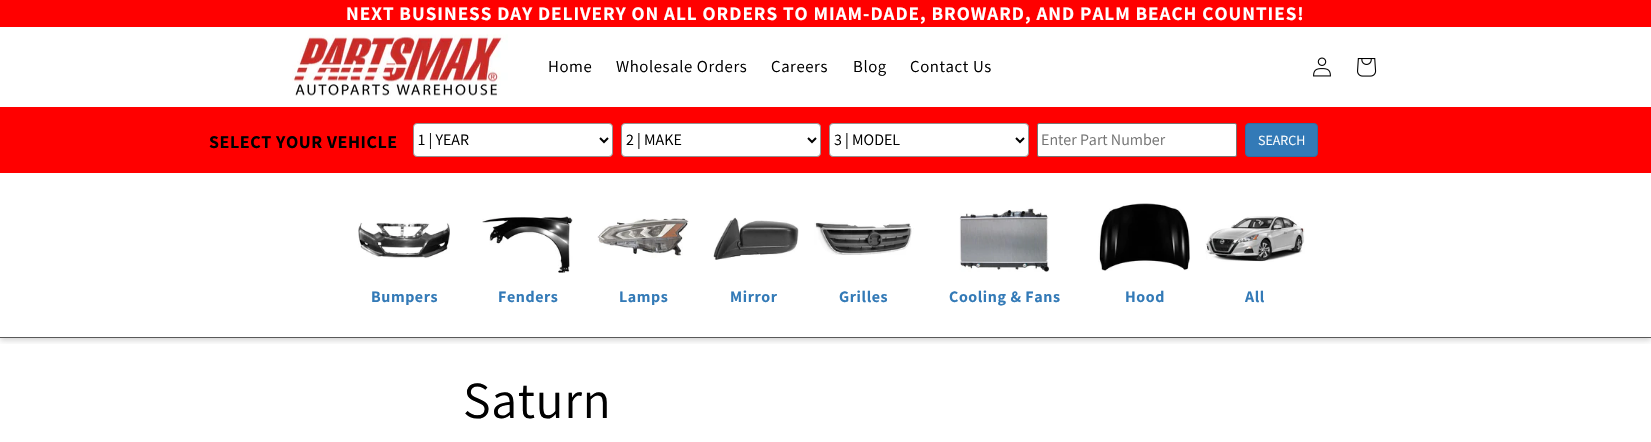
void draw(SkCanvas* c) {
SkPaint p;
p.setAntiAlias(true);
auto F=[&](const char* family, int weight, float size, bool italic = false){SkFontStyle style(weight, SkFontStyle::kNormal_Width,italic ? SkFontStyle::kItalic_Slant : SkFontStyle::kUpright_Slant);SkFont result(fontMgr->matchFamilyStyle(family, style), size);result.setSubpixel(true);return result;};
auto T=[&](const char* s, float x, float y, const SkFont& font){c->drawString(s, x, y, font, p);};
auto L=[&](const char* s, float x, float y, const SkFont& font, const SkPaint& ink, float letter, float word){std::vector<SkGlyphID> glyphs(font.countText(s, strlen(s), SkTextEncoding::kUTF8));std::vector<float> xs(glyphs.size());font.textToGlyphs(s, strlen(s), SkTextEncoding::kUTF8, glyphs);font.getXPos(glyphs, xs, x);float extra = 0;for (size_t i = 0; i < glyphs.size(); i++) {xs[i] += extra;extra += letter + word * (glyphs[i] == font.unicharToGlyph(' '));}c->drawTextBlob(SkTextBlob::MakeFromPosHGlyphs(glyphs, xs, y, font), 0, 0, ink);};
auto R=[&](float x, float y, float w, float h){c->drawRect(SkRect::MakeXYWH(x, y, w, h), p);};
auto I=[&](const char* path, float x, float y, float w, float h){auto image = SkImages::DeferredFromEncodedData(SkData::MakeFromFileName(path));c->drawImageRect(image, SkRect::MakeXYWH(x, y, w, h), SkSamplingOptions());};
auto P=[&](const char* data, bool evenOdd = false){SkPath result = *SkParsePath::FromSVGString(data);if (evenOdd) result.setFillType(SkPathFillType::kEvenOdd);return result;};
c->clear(0xffffffff);
p.setColor(0xffff0000);
R(0,0,1651,27);
auto f1 = F("Assistant",700,19.2);
p.setColor(0xffffffff);
L("NEXT BUSINESS DAY DELIVERY ON ALL ORDERS TO MIAM-DADE, BROWARD, AND PALM BEACH COUNTIES!",346,20,f1,p,1,0);
I("1.png",292,34,216,62);
auto f2 = F("Assistant",400,16.75);
p.setColor(0xff000000);
L("Home",548,72,f2,p,.6,0);
L("Wholesale Orders",616,72,f2,p,.6,0);
L("Careers",771,72,f2,p,.6,0);
L("Blog",853,72,f2,p,.6,0);
L("Contact Us",910,72,f2,p,.6,0);
I("2.png",1313,57,18,20);
I("3.png",1357,58,20,19);
c->save();
c->clipRect(SkRect::MakeXYWH(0,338,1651,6));
p.setColor(0x30000000);
p.setMaskFilter(SkMaskFilter::MakeBlur(kNormal_SkBlurStyle, 3));
c->drawRect(SkRect::MakeXYWH(0,175,1651,165),p);
p.setMaskFilter(nullptr);
c->restore();
p.setColor(0xffff0000);
R(0,107,1651,66);
auto f3 = F("Assistant",700,18);
p.setColor(0xff000000);
L("SELECT YOUR VEHICLE",209,148,f3,p,.6,0);
p.setColor(0xffffffff);
c->drawRoundRect(SkRect::MakeXYWH(413.5,123.5,199,33),3.5,3.5,p);
p.setStroke(true);
p.setStrokeWidth(1);
p.setColor(0xff949494);
c->drawRoundRect(SkRect::MakeXYWH(413.5,123.5,199,33),3.5,3.5,p);
p.setStrokeWidth(2);
p.setColor(0xff000000);
c->drawPath(P("M600 138l4 4l4-4"),p);
auto f4 = F("Assistant",400,16);
p.setStroke(false);
T("1 | YEAR",418,145,f4);
p.setColor(0xffffffff);
c->drawRoundRect(SkRect::MakeXYWH(621.5,123.5,199,33),3.5,3.5,p);
p.setStroke(true);
p.setStrokeWidth(1);
p.setColor(0xff949494);
c->drawRoundRect(SkRect::MakeXYWH(621.5,123.5,199,33),3.5,3.5,p);
p.setStrokeWidth(2);
p.setColor(0xff000000);
c->drawPath(P("M808 138l4 4l4-4"),p);
p.setStroke(false);
T("2 | MAKE",626,145,f4);
p.setColor(0xffffffff);
c->drawRoundRect(SkRect::MakeXYWH(829.5,123.5,199,33),3.5,3.5,p);
p.setStroke(true);
p.setStrokeWidth(1);
p.setColor(0xff949494);
c->drawRoundRect(SkRect::MakeXYWH(829.5,123.5,199,33),3.5,3.5,p);
p.setStrokeWidth(2);
p.setColor(0xff000000);
c->drawPath(P("M1016 138l4 4l4-4"),p);
p.setStroke(false);
T("3 | MODEL",834,145,f4);
p.setColor(0xffffffff);
c->drawRoundRect(SkRect::MakeXYWH(1037.5,123.5,199,33),1.5,1.5,p);
p.setStroke(true);
p.setStrokeWidth(1);
p.setColor(0xff767676);
c->drawRoundRect(SkRect::MakeXYWH(1037.5,123.5,199,33),1.5,1.5,p);
p.setStroke(false);
p.setColor(0xff757575);
T("Enter Part Number",1041,145,f4);
p.setColor(0xff337ab7);
c->drawRoundRect(SkRect::MakeXYWH(1245.5,123.5,72,33),3.5,3.5,p);
p.setStroke(true);
p.setColor(0xff2e6da4);
c->drawRoundRect(SkRect::MakeXYWH(1245.5,123.5,72,33),3.5,3.5,p);
auto f5 = F("Assistant",400,14);
p.setStroke(false);
p.setColor(0xffffffff);
T("SEARCH",1258,145,f5);
p.setColor(0xff595959);
R(0,337,1651,1);
I("4.png",358,222,92,37);
auto f6 = F("Assistant",700,16);
p.setColor(0xff337ab7);
L("Bumpers",371,302,f6,p,.6,0);
I("5.png",482,216,91,57);
L("Fenders",498,302,f6,p,.6,0);
I("6.png",597,218,92,40);
L("Lamps",619,302,f6,p,.6,0);
I("7.png",713,217,86,43);
L("Mirror",730,302,f6,p,.6,0);
I("8.png",814,222,100,33);
L("Grilles",839,302,f6,p,.6,0);
I("9.png",959,207,91,65);
L("Cooling & Fans",949,302,f6,p,.6,0);
I("10.png",1098,203,92,68);
L("Hood",1125,302,f6,p,.6,0);
I("11.png",1205,216,100,46);
L("All",1245,302,f6,p,.6,0);
auto f7 = F("Assistant",400,52);
p.setColor(0xff000000);
L("Saturn",463,418,f7,p,.6,0);
}
